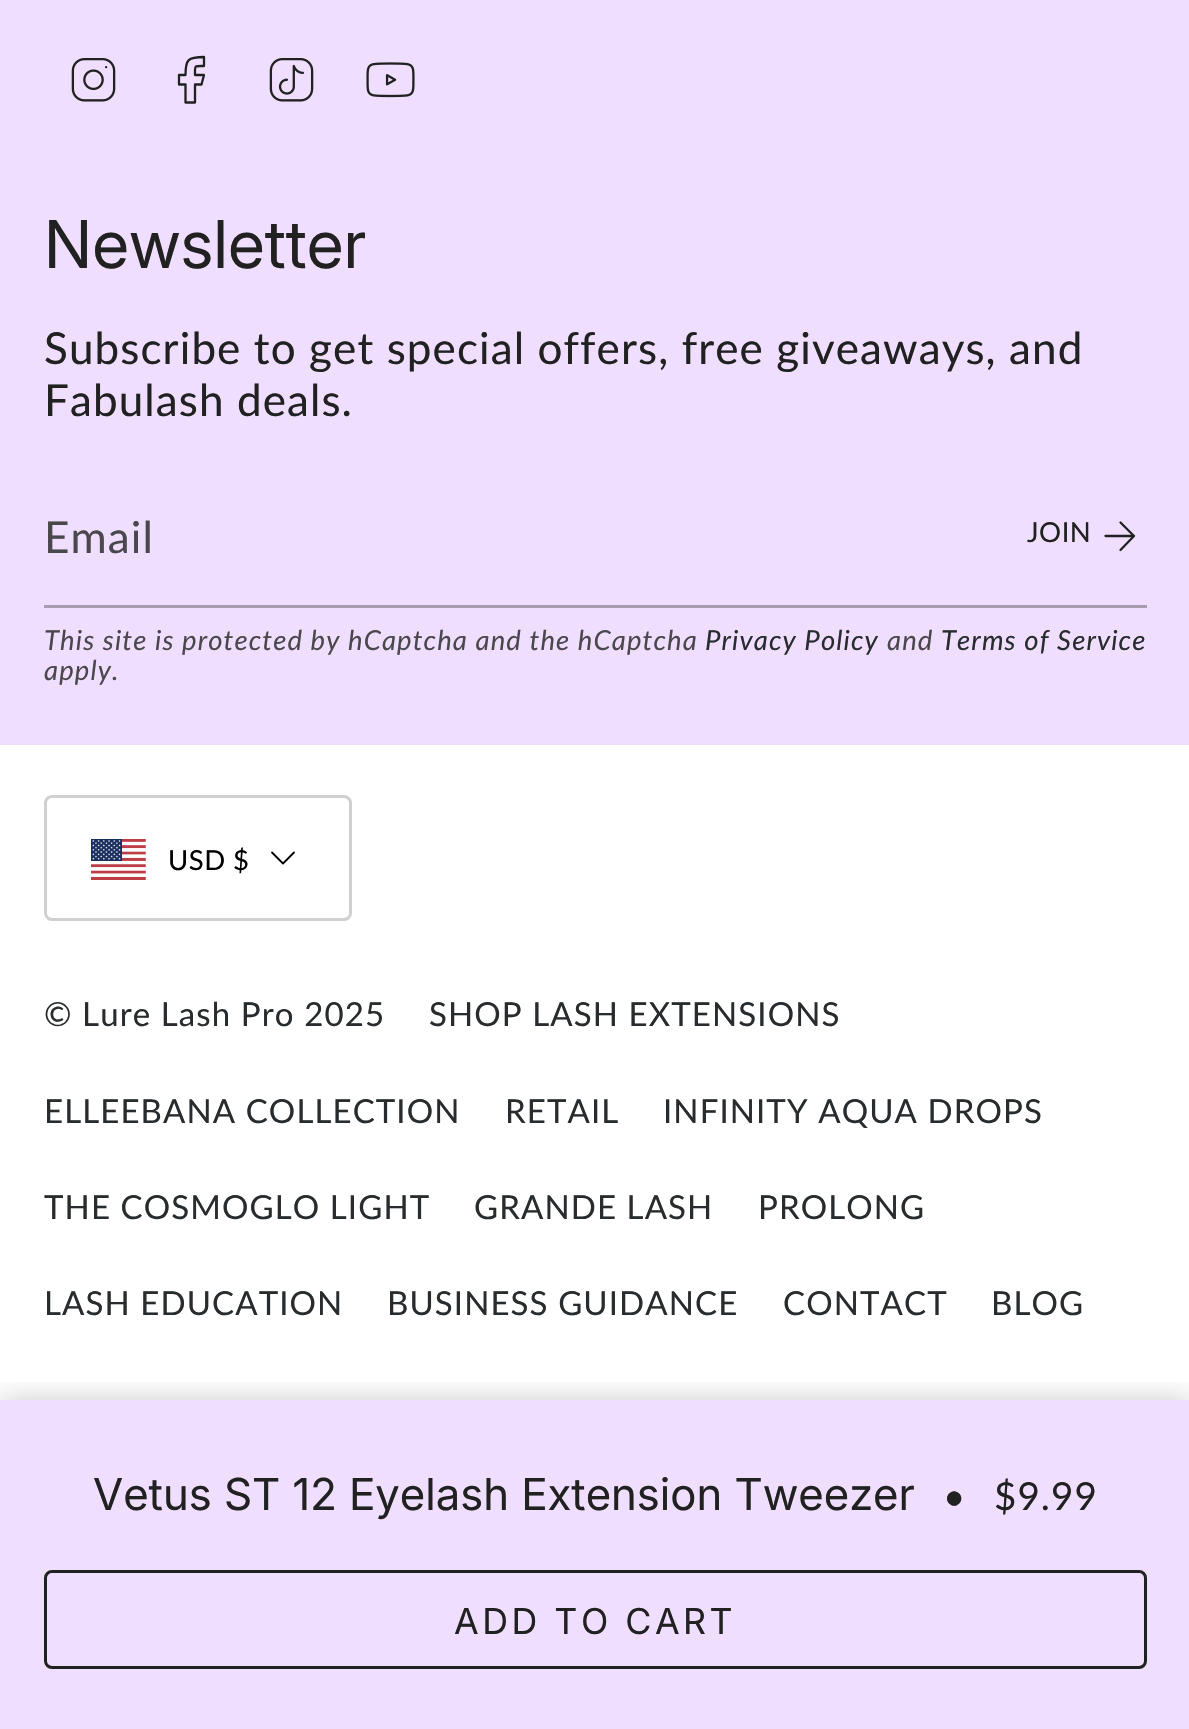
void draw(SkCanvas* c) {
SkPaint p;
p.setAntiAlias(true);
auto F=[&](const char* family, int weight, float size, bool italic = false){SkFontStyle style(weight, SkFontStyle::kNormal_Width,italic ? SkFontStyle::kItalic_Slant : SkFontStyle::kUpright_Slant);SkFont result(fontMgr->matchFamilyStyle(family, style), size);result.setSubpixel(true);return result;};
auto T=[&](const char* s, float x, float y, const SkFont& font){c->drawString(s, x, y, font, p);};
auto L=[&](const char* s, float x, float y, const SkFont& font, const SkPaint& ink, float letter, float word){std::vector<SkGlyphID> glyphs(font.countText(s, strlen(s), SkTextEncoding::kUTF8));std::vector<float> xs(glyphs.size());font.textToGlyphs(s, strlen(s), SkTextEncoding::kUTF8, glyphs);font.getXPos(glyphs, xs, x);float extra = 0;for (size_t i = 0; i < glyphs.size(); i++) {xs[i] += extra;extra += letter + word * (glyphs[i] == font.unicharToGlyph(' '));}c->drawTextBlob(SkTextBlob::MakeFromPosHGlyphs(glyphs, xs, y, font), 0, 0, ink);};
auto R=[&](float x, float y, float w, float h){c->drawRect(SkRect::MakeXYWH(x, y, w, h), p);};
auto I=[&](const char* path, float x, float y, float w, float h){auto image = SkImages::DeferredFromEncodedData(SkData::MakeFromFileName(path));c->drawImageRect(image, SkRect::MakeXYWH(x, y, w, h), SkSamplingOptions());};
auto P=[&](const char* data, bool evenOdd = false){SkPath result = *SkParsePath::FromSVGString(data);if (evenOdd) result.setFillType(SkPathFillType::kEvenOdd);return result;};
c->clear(0xffefdefd);
I("1.png",71,58,45,44);
p.setStroke(true);
p.setStrokeWidth(2.3);
p.setStrokeCap(SkPaint::kRound_Cap);
p.setStrokeJoin(SkPaint::kRound_Join);
p.setColor(0xff212121);
c->drawPath(P("M204 57c-16 0-18.5 2.5-18.5 18h-6.5v9.5h6.5v18h9.5v-18h6.5l2.5-9.5h-9c0-10-1-9 9-9z"),p);
I("2.png",269,58,45,44);
I("3.png",366,62,49,36);
auto f1 = F("Inter",400,66);
p.setStroke(false);
T("Newsletter",44,268,f1);
auto f2 = F("Lato",400,44);
L("Subscribe to get special offers, free giveaways, and",44,364,f2,p,1.1,0);
L("Fabulash deals.",44,416,f2,p,1.1,0);
p.setColor(0xffa79cb0);
R(44,605,1103,3);
p.setColor(0xff4a474d);
L("Email",44,553,f2,p,1.1,0);
auto f3 = F("Lato",400,27.5);
p.setColor(0xff212121);
L("JOIN",1027,542,f3,p,.5,0);
p.setStroke(true);
c->drawPath(P("M1105.5 536h28.5m0 0l-13.5-13.5m13.5 13.5l-13.5 14"),p);
auto f4 = F("Lato",400,27.5,true);
p.setStroke(false);
p.setColor(0xff4a474d);
L("This site is protected by hCaptcha and the hCaptcha",44,650,f4,p,1.1,0);
p.setColor(0xff282c2e);
L("Privacy Policy",705,650,f4,p,1.1,0);
p.setColor(0xff4a474d);
L("and",887,650,f4,p,1.1,0);
p.setColor(0xff282c2e);
L("Terms of Service",941,650,f4,p,1.1,0);
p.setColor(0xff4a474d);
L("apply.",44,680,f4,p,1.1,0);
p.setColor(0xffffffff);
R(0,745,1189,655);
p.setStroke(true);
p.setStrokeWidth(3);
p.setStrokeCap(SkPaint::kButt_Cap);
p.setStrokeJoin(SkPaint::kMiter_Join);
p.setColor(0xffd1d0ce);
c->drawRoundRect(SkRect::MakeXYWH(45.5,796.5,305,123),6.5,6.5,p);
I("4.png",91,839,55,41);
p.setStroke(false);
p.setColor(0xff000000);
L("USD $",168,870,f3,p,.5,0);
p.setStroke(true);
p.setStrokeWidth(1.8);
p.setStrokeCap(SkPaint::kRound_Cap);
p.setStrokeJoin(SkPaint::kRound_Join);
c->drawPath(P("M272 852.5l11 11l11-11"),p);
auto f5 = F("Lato",400,33);
p.setStroke(false);
p.setColor(0xff282c2e);
L("© Lure Lash Pro 2025",44,1026,f5,p,1.1,0);
L("SHOP LASH EXTENSIONS",429,1026,f5,p,1.1,0);
L("ELLEEBANA COLLECTION",44,1123,f5,p,1.1,0);
L("RETAIL",505,1123,f5,p,1.1,0);
L("INFINITY AQUA DROPS",663,1123,f5,p,1.1,0);
L("THE COSMOGLO LIGHT",44,1219,f5,p,1.1,0);
L("GRANDE LASH",474,1219,f5,p,1.1,0);
L("PROLONG",758,1219,f5,p,1.1,0);
L("LASH EDUCATION",44,1315,f5,p,1.1,0);
L("BUSINESS GUIDANCE",387,1315,f5,p,1.1,0);
L("CONTACT",783,1315,f5,p,1.1,0);
L("BLOG",991,1315,f5,p,1.1,0);
c->save();
c->clipRect(SkRect::MakeXYWH(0,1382,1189,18));
p.setColor(0x33000000);
p.setMaskFilter(SkMaskFilter::MakeBlur(kNormal_SkBlurStyle, 14));
c->drawRect(SkRect::MakeXYWH(0,1400,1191,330),p);
p.setMaskFilter(nullptr);
c->restore();
auto f6 = F("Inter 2",400,44);
p.setColor(0xff212121);
T("Vetus ST 12 Eyelash Extension Tweezer",93,1510,f6);
auto f7 = F("Lato",400,38.5);
L("•",943,1510,f7,p,1.1,0);
L("$9.99",994,1510,f7,p,1.1,0);
p.setStroke(true);
p.setStrokeWidth(3);
p.setStrokeCap(SkPaint::kButt_Cap);
p.setStrokeJoin(SkPaint::kMiter_Join);
c->drawRoundRect(SkRect::MakeXYWH(45.5,1571.5,1100,96),6.5,6.5,p);
auto f8 = F("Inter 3",400,35.75);
p.setStroke(false);
L("ADD TO CART",454,1634,f8,p,3.5,0);
}
